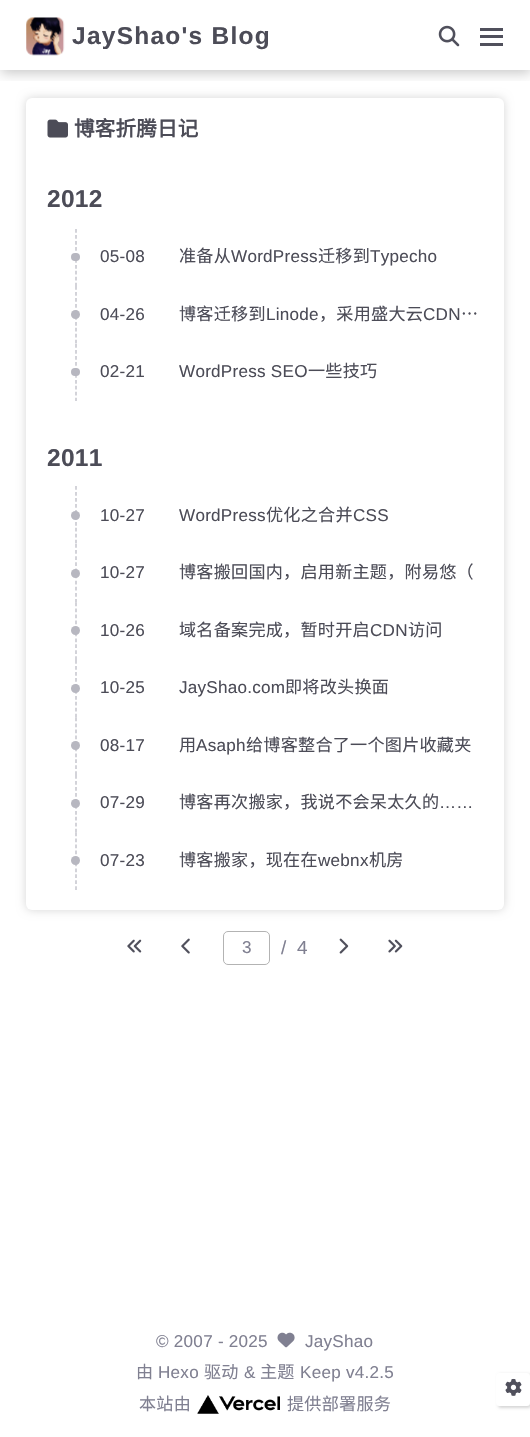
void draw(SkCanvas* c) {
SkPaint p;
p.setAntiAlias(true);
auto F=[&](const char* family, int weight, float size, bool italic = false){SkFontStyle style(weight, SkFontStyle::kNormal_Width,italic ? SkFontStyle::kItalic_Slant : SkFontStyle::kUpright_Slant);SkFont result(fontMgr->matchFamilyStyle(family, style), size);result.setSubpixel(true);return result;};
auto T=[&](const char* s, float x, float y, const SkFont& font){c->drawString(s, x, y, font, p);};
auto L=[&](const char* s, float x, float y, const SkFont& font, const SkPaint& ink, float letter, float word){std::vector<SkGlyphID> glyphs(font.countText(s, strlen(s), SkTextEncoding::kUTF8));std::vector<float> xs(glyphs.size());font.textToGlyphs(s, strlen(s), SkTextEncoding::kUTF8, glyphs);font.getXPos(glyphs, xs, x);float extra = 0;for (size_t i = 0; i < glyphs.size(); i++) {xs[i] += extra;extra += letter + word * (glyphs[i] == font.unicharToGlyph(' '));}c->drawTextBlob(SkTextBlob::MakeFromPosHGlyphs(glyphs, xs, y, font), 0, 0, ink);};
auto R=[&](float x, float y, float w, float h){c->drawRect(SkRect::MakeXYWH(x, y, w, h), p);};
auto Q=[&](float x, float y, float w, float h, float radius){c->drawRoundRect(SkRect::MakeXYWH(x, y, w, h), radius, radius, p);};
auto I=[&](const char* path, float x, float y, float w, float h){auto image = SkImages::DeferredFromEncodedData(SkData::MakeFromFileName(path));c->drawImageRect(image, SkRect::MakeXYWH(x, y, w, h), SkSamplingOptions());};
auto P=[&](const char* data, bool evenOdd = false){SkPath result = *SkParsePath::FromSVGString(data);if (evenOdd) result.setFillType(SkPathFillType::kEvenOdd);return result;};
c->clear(0xffffffff);
c->save();
c->clipRect(SkRect::MakeXYWH(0,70,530,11));
p.setColor(0x38000000);
p.setMaskFilter(SkMaskFilter::MakeBlur(kNormal_SkBlurStyle, 6));
c->drawRect(SkRect::MakeXYWH(1,3,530,70),p);
p.setMaskFilter(nullptr);
c->restore();
I("1.png",26,17,39,39);
auto f1 = F("Liberation Sans",700,24.5);
p.setColor(0xff4c4c57);
L("JayShao's Blog",72,44,f1,p,1.25,0);
I("2.png",438,25,22,22);
p.setColor(0xff50505c);
R(480,35,23,3);
R(480,28,23,3);
R(480,43,23,3);
p.setColor(0x29000000);
p.setMaskFilter(SkMaskFilter::MakeBlur(kNormal_SkBlurStyle, 5));
c->drawRoundRect(SkRect::MakeXYWH(26,98,478,812),6,6,p);
p.setMaskFilter(nullptr);
p.setColor(0xffffffff);
Q(26,98,478,812,6);
I("3.png",47,119,21,19);
auto f2 = F("Noto Sans CJK SC",700,20.5);
p.setColor(0xff4c4c57);
L("博客折腾日记",74,136,f2,p,.25,0);
L("2012",47,207,f1,p,.25,0);
p.setStroke(true);
p.setStrokeWidth(1.2);
p.setColor(0xffb7b7c0);
p.setPathEffect(SkDashPathEffect::Make({{3.75f,2.23f}}, 0));
c->drawPath(P("M76 229v57"),p);
p.setPathEffect(nullptr);
p.setStroke(false);
Q(71,253,9,8,4);
auto f3 = F("Liberation Sans",400,17.1);
p.setColor(0xff4c4c57);
L("05-08",100,262,f3,p,.25,0);
auto f4 = F("Noto Sans CJK SC",400,17.1);
L("准备从",179,262,f4,p,.25,0);
L("WordPress",231,262,f3,p,.25,0);
L("迁移到",318,262,f4,p,.25,0);
L("Typecho",370,262,f3,p,.25,0);
p.setStroke(true);
p.setColor(0xffb7b7c0);
p.setPathEffect(SkDashPathEffect::Make({{3.75f,2.23f}}, 0));
c->drawPath(P("M76 286v58"),p);
p.setPathEffect(nullptr);
p.setStroke(false);
c->drawCircle(75.5,314.5,4.5,p);
p.setColor(0xff4c4c57);
L("04-26",100,320,f3,p,.25,0);
L("博客迁移到",179,320,f4,p,.25,0);
L("Linode",266,320,f3,p,.25,0);
L("，采用盛大云",319,320,f4,p,.25,0);
L("CDN",423,320,f3,p,.25,0);
L("…",461,320,f4,p,.25,0);
p.setStroke(true);
p.setColor(0xffb7b7c0);
p.setPathEffect(SkDashPathEffect::Make({{3.75f,2.23f}}, 0));
c->drawPath(P("M76 344v57"),p);
p.setPathEffect(nullptr);
p.setStroke(false);
Q(71,368,9,8,4);
p.setColor(0xff4c4c57);
L("02-21",100,377,f3,p,.25,0);
L("WordPress SEO",179,377,f3,p,.25,0);
L("一些技巧",308,377,f4,p,.25,0);
L("2011",47,466,f1,p,.25,0);
p.setStroke(true);
p.setColor(0xffb7b7c0);
p.setPathEffect(SkDashPathEffect::Make({{3.75f,2.23f}}, 0));
c->drawPath(P("M76 486v58"),p);
p.setPathEffect(nullptr);
p.setStroke(false);
c->drawCircle(75.5,515.5,4.5,p);
p.setColor(0xff4c4c57);
L("10-27",100,521,f3,p,.25,0);
L("WordPress",179,521,f3,p,.25,0);
L("优化之合并",266,521,f4,p,.25,0);
L("CSS",353,521,f3,p,.25,0);
p.setStroke(true);
p.setColor(0xffb7b7c0);
p.setPathEffect(SkDashPathEffect::Make({{3.75f,2.36f}}, 0));
c->drawPath(P("M76 544v58.5"),p);
p.setPathEffect(nullptr);
p.setStroke(false);
c->drawCircle(75.5,573.5,4.5,p);
p.setColor(0xff4c4c57);
L("10-27",100,578,f3,p,.25,0);
L("博客搬回国内，启用新主题，附易悠（",179,578,f4,p,.25,0);
p.setStroke(true);
p.setColor(0xffb7b7c0);
p.setPathEffect(SkDashPathEffect::Make({{3.75f,2.23f}}, 0));
c->drawPath(P("M76 602.5v57.5"),p);
p.setPathEffect(nullptr);
p.setStroke(false);
c->drawCircle(75.5,630.5,4.5,p);
p.setColor(0xff4c4c57);
L("10-26",100,636,f3,p,.25,0);
L("域名备案完成，暂时开启",179,636,f4,p,.25,0);
L("CDN",370,636,f3,p,.25,0);
L("访问",408,636,f4,p,.25,0);
p.setStroke(true);
p.setColor(0xffb7b7c0);
p.setPathEffect(SkDashPathEffect::Make({{3.75f,2.23f}}, 0));
c->drawPath(P("M76 660v57.5"),p);
p.setPathEffect(nullptr);
p.setStroke(false);
c->drawCircle(75.5,688.5,4.5,p);
p.setColor(0xff4c4c57);
L("10-25",100,693,f3,p,.25,0);
L("JayShao.com",179,693,f3,p,.25,0);
L("即将改头换面",285,693,f4,p,.25,0);
p.setStroke(true);
p.setColor(0xffb7b7c0);
p.setPathEffect(SkDashPathEffect::Make({{3.75f,2.23f}}, 0));
c->drawPath(P("M76 717.5v57.5"),p);
p.setPathEffect(nullptr);
p.setStroke(false);
c->drawCircle(75.5,745.5,4.5,p);
p.setColor(0xff4c4c57);
L("08-17",100,751,f3,p,.25,0);
L("用",179,751,f4,p,.25,0);
L("Asaph",196,751,f3,p,.25,0);
L("给博客整合了一个图片收藏夹",246,751,f4,p,.25,0);
p.setStroke(true);
p.setColor(0xffb7b7c0);
p.setPathEffect(SkDashPathEffect::Make({{3.75f,2.23f}}, 0));
c->drawPath(P("M76 775v57.5"),p);
p.setPathEffect(nullptr);
p.setStroke(false);
c->drawCircle(75.5,803.5,4.5,p);
p.setColor(0xff4c4c57);
L("07-29",100,808,f3,p,.25,0);
L("博客再次搬家，我说不会呆太久的",179,808,f4,p,.25,0);
L("……",439,808,f3,p,.25,0);
p.setStroke(true);
p.setColor(0xffb7b7c0);
p.setPathEffect(SkDashPathEffect::Make({{3.75f,2.23f}}, 0));
c->drawPath(P("M76 832.5v57.5"),p);
p.setPathEffect(nullptr);
p.setStroke(false);
c->drawCircle(75.5,860.5,4.5,p);
p.setColor(0xff4c4c57);
L("07-23",100,866,f3,p,.25,0);
L("博客搬家，现在在",179,866,f4,p,.25,0);
L("webnx",318,866,f3,p,.25,0);
L("机房",369,866,f4,p,.25,0);
I("4.png",127,939,15,14);
I("5.png",181,938,9,16);
p.setStroke(true);
p.setStrokeWidth(1);
p.setColor(0xffb3b3b3);
c->drawRoundRect(SkRect::MakeXYWH(223.5,931.5,46,33),4.5,4.5,p);
p.setStroke(false);
p.setColor(0xff808091);
T("3",242,953,f3);
auto f5 = F("Liberation Sans",400,19);
L("/",281,954,f5,p,.25,0);
L("4",297,954,f5,p,.25,0);
I("6.png",339,938,10,16);
I("7.png",388,939,15,14);
L("© 2007 - 2025",156,1347,f3,p,.25,0);
I("8.png",277,1332,18,16);
L("JayShao",305,1347,f3,p,.25,0);
L("由",136,1378,f4,p,.25,0);
L("Hexo",158,1378,f3,p,.25,0);
L("驱动",204,1378,f4,p,.25,0);
L("&",244,1378,f3,p,.25,0);
L("主题",260,1378,f4,p,.25,0);
L("Keep v4.2.5",300,1378,f3,p,.25,0);
L("本站由",139,1410,f4,p,.25,0);
I("9.png",197,1395,83,19);
L("提供部署服务",287,1410,f4,p,.25,0);
p.setColor(0x29000000);
p.setMaskFilter(SkMaskFilter::MakeBlur(kNormal_SkBlurStyle, 1.5));
c->drawRoundRect(SkRect::MakeXYWH(498,1374,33,34),3,3,p);
p.setMaskFilter(nullptr);
p.setColor(0xffffffff);
Q(496,1373,34,33,3);
I("10.png",505,1378,17,18);
}
